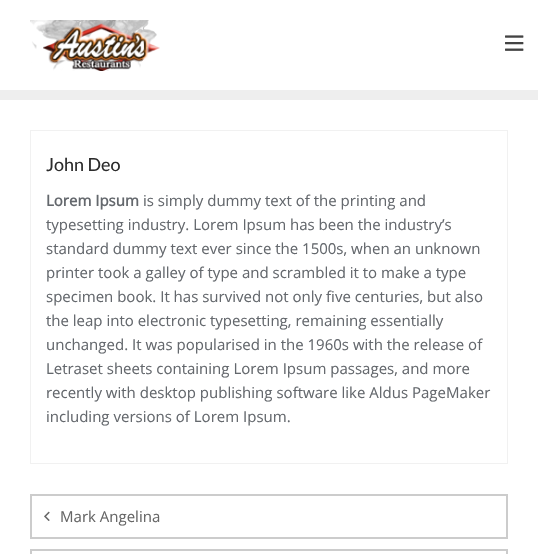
void draw(SkCanvas* c) {
SkPaint p;
p.setAntiAlias(true);
auto F=[&](const char* family, int weight, float size, bool italic = false){SkFontStyle style(weight, SkFontStyle::kNormal_Width,italic ? SkFontStyle::kItalic_Slant : SkFontStyle::kUpright_Slant);SkFont result(fontMgr->matchFamilyStyle(family, style), size);result.setSubpixel(true);return result;};
auto T=[&](const char* s, float x, float y, const SkFont& font){c->drawString(s, x, y, font, p);};
auto R=[&](float x, float y, float w, float h){c->drawRect(SkRect::MakeXYWH(x, y, w, h), p);};
auto I=[&](const char* path, float x, float y, float w, float h){auto image = SkImages::DeferredFromEncodedData(SkData::MakeFromFileName(path));c->drawImageRect(image, SkRect::MakeXYWH(x, y, w, h), SkSamplingOptions());};
c->clear(0xffffffff);
p.setColor(0xffeeeeee);
R(0,90,538,10);
I("1.png",30,20,130,51);
I("2.png",505,35,19,16);
p.setStroke(true);
p.setStrokeWidth(1);
p.setColor(0xfff1f1f1);
c->drawRect(SkRect::MakeXYWH(30.5,130.5,477,333),p);
auto f1 = F("Lato",400,18);
p.setStroke(false);
p.setColor(0xff2c2c2c);
T("John Deo",46,171,f1);
auto f2 = F("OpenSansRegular",700,15);
p.setColor(0xff64686d);
T("Lorem Ipsum",46,206,f2);
auto f3 = F("OpenSansRegular",400,15);
T("is simply dummy text of the printing and",143,206,f3);
T("typesetting industry. Lorem Ipsum has been the industry’s",46,230,f3);
T("standard dummy text ever since the 1500s, when an unknown",46,254,f3);
T("printer took a galley of type and scrambled it to make a type",46,278,f3);
T("specimen book. It has survived not only five centuries, but also",46,302,f3);
T("the leap into electronic typesetting, remaining essentially",46,326,f3);
T("unchanged. It was popularised in the 1960s with the release of",46,350,f3);
T("Letraset sheets containing Lorem Ipsum passages, and more",46,374,f3);
T("recently with desktop publishing software like Aldus PageMaker",46,398,f3);
T("including versions of Lorem Ipsum.",46,422,f3);
p.setStroke(true);
p.setStrokeWidth(2);
p.setColor(0xffcccccc);
c->drawRect(SkRect::MakeXYWH(31,495,476,43),p);
I("3.png",44,511,6,10);
p.setStroke(false);
p.setColor(0xff666666);
T("Mark Angelina",60,522,f3);
p.setStroke(true);
p.setColor(0xffcccccc);
c->drawRect(SkRect::MakeXYWH(31,550,476,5),p);
}
